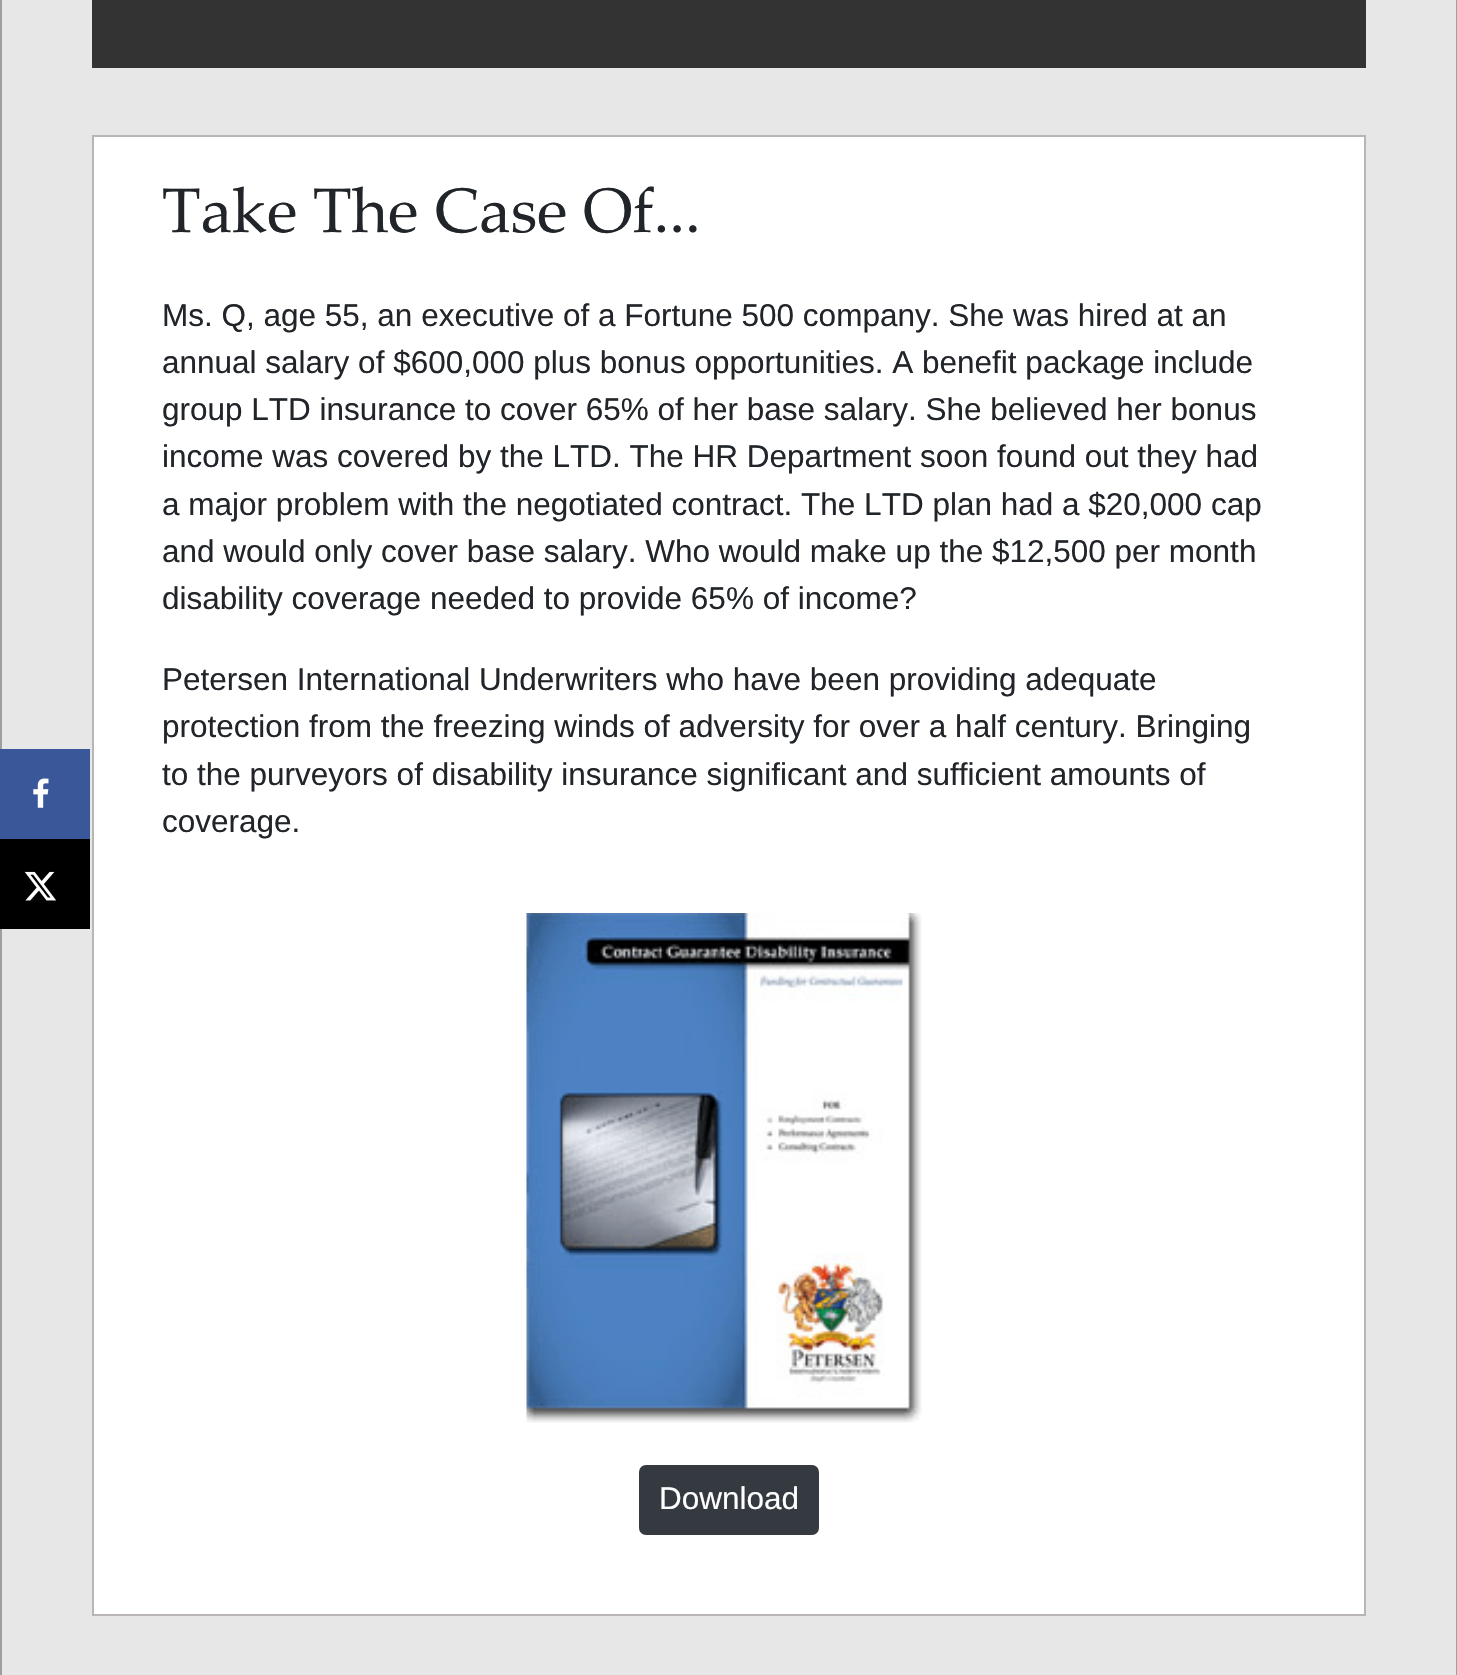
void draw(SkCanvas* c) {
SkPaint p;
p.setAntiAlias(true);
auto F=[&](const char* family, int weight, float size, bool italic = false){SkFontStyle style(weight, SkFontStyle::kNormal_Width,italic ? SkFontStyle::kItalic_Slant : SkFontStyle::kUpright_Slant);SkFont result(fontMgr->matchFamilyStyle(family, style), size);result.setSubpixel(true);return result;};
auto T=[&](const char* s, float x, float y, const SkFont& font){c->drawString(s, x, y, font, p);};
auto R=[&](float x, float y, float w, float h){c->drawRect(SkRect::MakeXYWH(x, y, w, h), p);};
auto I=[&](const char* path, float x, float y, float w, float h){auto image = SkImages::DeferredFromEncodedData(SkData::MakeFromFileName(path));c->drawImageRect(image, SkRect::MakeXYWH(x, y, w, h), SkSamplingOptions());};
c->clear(0xffe7e7e8);
p.setColor(0xffa19e9e);
R(0,0,2,1675);
p.setColor(0xff3a579a);
R(0,749,90,90);
I("1.png",33,778,16,30);
p.setColor(0xff000000);
R(0,839,90,90);
I("2.png",24,871,33,30);
p.setColor(0xffa19e9e);
R(1456,0,1,1675);
p.setColor(0xff333333);
R(92,0,1274,68);
p.setColor(0xffffffff);
c->drawRect(SkRect::MakeXYWH(93,136,1272,1479),p);
p.setStroke(true);
p.setStrokeWidth(2);
p.setColor(0xffb9b5b4);
c->drawRect(SkRect::MakeXYWH(93,136,1272,1479),p);
auto f1 = F("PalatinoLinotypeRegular",400,63);
p.setStroke(false);
p.setColor(0xff212529);
T("Take The Case Of...",162,232,f1);
auto f2 = F("Liberation Sans",400,31.5);
T("Ms. Q, age 55, an executive of a Fortune 500 company. She was hired at an",162,326,f2);
T("annual salary of $600,000 plus bonus opportunities. A benefit package include",162,373,f2);
T("group LTD insurance to cover 65% of her base salary. She believed her bonus",162,420,f2);
T("income was covered by the LTD. The HR Department soon found out they had",162,467,f2);
T("a major problem with the negotiated contract. The LTD plan had a $20,000 cap",162,515,f2);
T("and would only cover base salary. Who would make up the $12,500 per month",162,562,f2);
T("disability coverage needed to provide 65% of income?",162,609,f2);
T("Petersen International Underwriters who have been providing adequate",162,690,f2);
T("protection from the freezing winds of adversity for over a half century. Bringing",162,737,f2);
T("to the purveyors of disability insurance significant and sufficient amounts of",162,785,f2);
T("coverage.",162,832,f2);
I("3.png",526,913,396,510);
p.setColor(0xff343a40);
c->drawRoundRect(SkRect::MakeXYWH(640,1466,178,68),6,6,p);
p.setStroke(true);
c->drawRoundRect(SkRect::MakeXYWH(640,1466,178,68),6,6,p);
p.setStroke(false);
p.setColor(0xffffffff);
T("Download",659,1509,f2);
}
